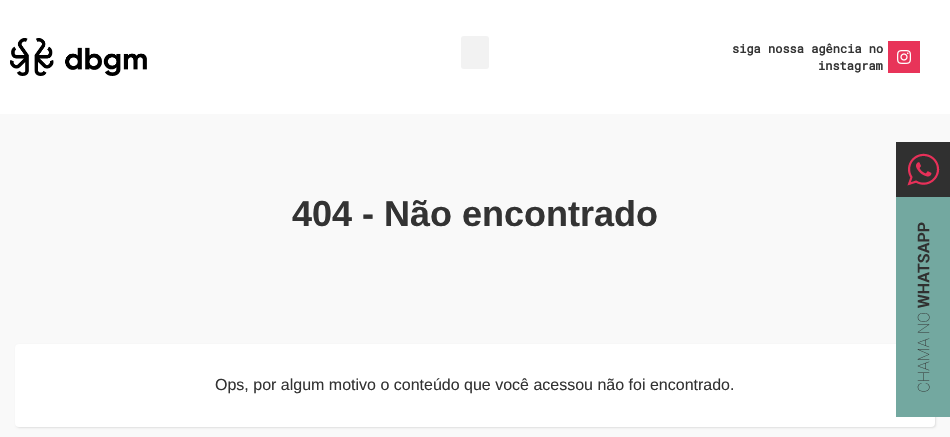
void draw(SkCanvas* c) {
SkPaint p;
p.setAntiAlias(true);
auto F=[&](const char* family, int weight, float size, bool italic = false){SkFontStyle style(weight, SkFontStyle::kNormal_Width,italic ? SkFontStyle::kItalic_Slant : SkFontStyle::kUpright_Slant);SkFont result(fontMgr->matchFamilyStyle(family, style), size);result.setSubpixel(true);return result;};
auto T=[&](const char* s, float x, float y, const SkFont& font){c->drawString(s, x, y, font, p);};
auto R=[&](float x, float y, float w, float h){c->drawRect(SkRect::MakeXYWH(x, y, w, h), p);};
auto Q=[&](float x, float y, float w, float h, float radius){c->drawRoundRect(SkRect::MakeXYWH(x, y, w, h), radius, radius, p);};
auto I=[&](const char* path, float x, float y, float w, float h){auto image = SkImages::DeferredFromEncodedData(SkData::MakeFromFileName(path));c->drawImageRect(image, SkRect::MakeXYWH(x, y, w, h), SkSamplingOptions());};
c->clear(0xfff9f9f9);
p.setColor(0xffffffff);
R(0,0,950,114);
I("1.png",10,38,137,38);
p.setColor(0xfff2f2f2);
Q(461,36,28,33,3);
auto f1 = F("Roboto Mono",700,12);
p.setColor(0xff333333);
T("siga nossa agência no",732,53,f1);
T("instagram",818,70,f1);
p.setColor(0xffe83459);
R(888,41,32,32);
I("2.png",897,50,14,14);
auto f2 = F("Liberation Sans",700,36);
p.setColor(0xff333333);
T("404 - Não encontrado",292,226,f2);
p.setColor(0x1a000000);
p.setMaskFilter(SkMaskFilter::MakeBlur(kNormal_SkBlurStyle, 1));
c->drawRoundRect(SkRect::MakeXYWH(16,345,920,83),4,4,p);
p.setMaskFilter(nullptr);
p.setColor(0xffffffff);
Q(15,344,920,83,4);
auto f3 = F("Liberation Sans",400,16);
p.setColor(0xff333333);
T("Ops, por algum motivo o conteúdo que você acessou não foi encontrado.",215,390,f3);
I("3.png",896,142,54,275);
}
